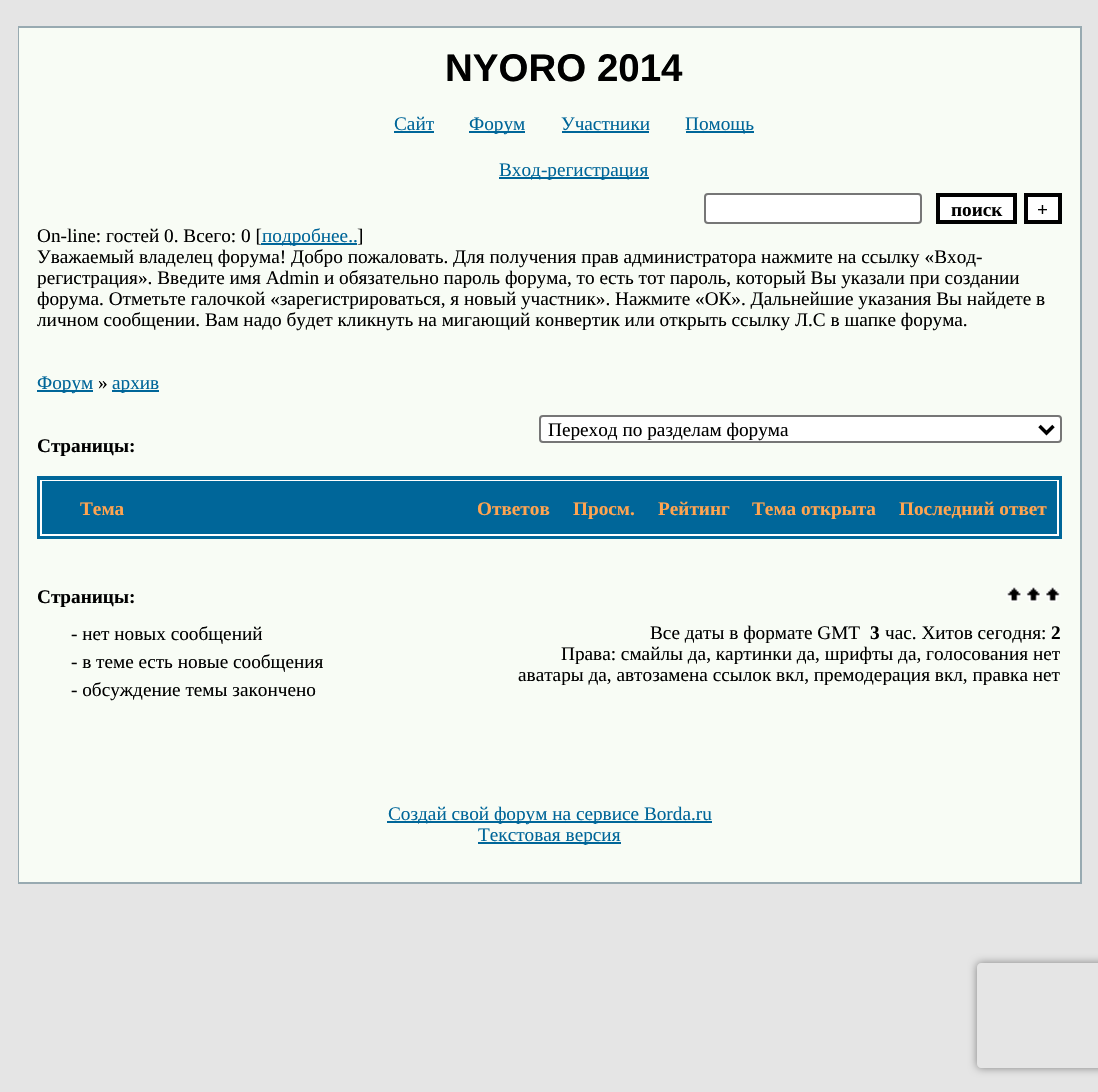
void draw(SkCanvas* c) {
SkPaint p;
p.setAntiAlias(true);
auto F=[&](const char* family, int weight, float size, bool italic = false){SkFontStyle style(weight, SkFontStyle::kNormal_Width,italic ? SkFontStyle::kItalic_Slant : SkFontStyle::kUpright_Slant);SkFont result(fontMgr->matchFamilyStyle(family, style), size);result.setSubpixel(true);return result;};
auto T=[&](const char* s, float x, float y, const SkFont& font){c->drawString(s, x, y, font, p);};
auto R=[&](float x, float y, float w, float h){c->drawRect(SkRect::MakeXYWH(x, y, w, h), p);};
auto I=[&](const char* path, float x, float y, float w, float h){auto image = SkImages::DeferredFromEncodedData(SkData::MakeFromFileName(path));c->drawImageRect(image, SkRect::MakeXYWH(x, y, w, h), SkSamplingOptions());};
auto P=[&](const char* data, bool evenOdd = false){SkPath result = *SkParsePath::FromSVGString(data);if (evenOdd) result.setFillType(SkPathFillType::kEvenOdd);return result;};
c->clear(0xffe5e5e5);
p.setColor(0xff98aab1);
R(18,26,1064,858);
p.setColor(0xfff8fcf5);
R(19,28,1061,854);
auto f1 = F("Liberation Sans",700,38.5);
p.setColor(0xff000000);
T("NYORO 2014",445,81,f1);
auto f2 = F("Liberation Serif",400,19.25);
p.setColor(0xff006699);
T("Сайт",394,130,f2);
R(394,131,40,2);
R(469,131,56,2);
T("Форум",469,130,f2);
T("Участники",561,130,f2);
R(562,131,87,2);
R(686,131,68,2);
T("Помощь",685,130,f2);
R(499,177,150,2);
T("Вход-регистрация",499,176,f2);
p.setColor(0xffffffff);
c->drawRoundRect(SkRect::MakeXYWH(705,194,216,29),3,3,p);
p.setStroke(true);
p.setStrokeWidth(2);
p.setColor(0xff767676);
c->drawRoundRect(SkRect::MakeXYWH(705,194,216,29),3,3,p);
p.setStroke(false);
p.setColor(0xffffffff);
c->drawRect(SkRect::MakeXYWH(938,195,77,27),p);
p.setStroke(true);
p.setStrokeWidth(4);
p.setColor(0xff000000);
c->drawRect(SkRect::MakeXYWH(938,195,77,27),p);
auto f3 = F("Liberation Serif",700,19.25);
p.setStroke(false);
T("поиск",951,216,f3);
p.setColor(0xffffffff);
c->drawRect(SkRect::MakeXYWH(1026,195,34,27),p);
p.setStroke(true);
p.setColor(0xff000000);
c->drawRect(SkRect::MakeXYWH(1026,195,34,27),p);
p.setStroke(false);
T("+",1037,216,f3);
T("On-line: гостей 0. Всего: 0 [",37,242,f2);
p.setColor(0xff006699);
R(261,243,96,2);
T("подробнее..",262,242,f2);
p.setColor(0xff000000);
T("]",357,242,f2);
T("Уважаемый владелец форума! Добро пожаловать. Для получения прав администратора нажмите на ссылку «Вход-",37,263,f2);
T("регистрация». Введите имя Admin и обязательно пароль форума, то есть тот пароль, который Вы указали при создании",37,284,f2);
T("форума. Отметьте галочкой «зарегистрироваться, я новый участник». Нажмите «ОК». Дальнейшие указания Вы найдете в",37,305,f2);
T("личном сообщении. Вам надо будет кликнуть на мигающий конвертик или открыть ссылку Л.С в шапке форума.",37,326,f2);
p.setColor(0xff006699);
R(37,390,56,2);
T("Форум",37,389,f2);
p.setColor(0xff000000);
T("»",98,389,f2);
p.setColor(0xff006699);
R(112,390,47,2);
T("архив",112,389,f2);
p.setColor(0xff000000);
T("Страницы:",37,452,f3);
p.setColor(0xffffffff);
c->drawRoundRect(SkRect::MakeXYWH(540,416,521,26),3,3,p);
p.setStroke(true);
p.setStrokeWidth(2);
p.setColor(0xff767676);
c->drawRoundRect(SkRect::MakeXYWH(540,416,521,26),3,3,p);
p.setStrokeWidth(3.5);
p.setColor(0xff000000);
c->drawPath(P("M1039.5 426l7 7l7-7"),p);
p.setStroke(false);
T("Переход по разделам форума",548,436,f2);
p.setColor(0xff006699);
R(37,476,1025,63);
p.setColor(0xffffffff);
R(40,480,1019,56);
p.setColor(0xff006699);
R(42,481,1015,53);
p.setColor(0xffffa450);
T("Тема",80,515,f3);
T("Ответов",477,515,f3);
T("Просм.",573,515,f3);
T("Рейтинг",658,515,f3);
T("Тема открыта",752,515,f3);
T("Последний ответ",899,515,f3);
p.setColor(0xff000000);
T("Страницы:",37,603,f3);
I("1.png",1006,586,55,16);
T("- нет новых сообщений",71,640,f2);
T("- в теме есть новые сообщения",71,668,f2);
T("- обсуждение темы закончено",71,696,f2);
T("Все даты в формате GMT",650,639,f2);
T("3",870,639,f3);
T("час. Хитов сегодня:",885,639,f2);
T("2",1051,639,f3);
T("Права: смайлы да, картинки да, шрифты да, голосования нет",561,660,f2);
T("аватары да, автозамена ссылок вкл, премодерация вкл, правка нет",518,681,f2);
p.setColor(0xff006699);
R(387,821,325,2);
T("Создай свой форум на сервисе Borda.ru",388,820,f2);
R(478,842,143,2);
T("Текстовая версия",478,841,f2);
c->save();
c->clipPath(P("M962 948h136v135h-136zm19 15h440c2 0 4 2 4 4v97c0 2-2 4-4 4h-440c-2 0-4-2-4-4v-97c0-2 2-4 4-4z",true),true);
p.setColor(0xff808080);
p.setMaskFilter(SkMaskFilter::MakeBlur(kNormal_SkBlurStyle, 4.5));
c->drawRoundRect(SkRect::MakeXYWH(977,963,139,105),4,4,p);
p.setMaskFilter(nullptr);
c->restore();
}
